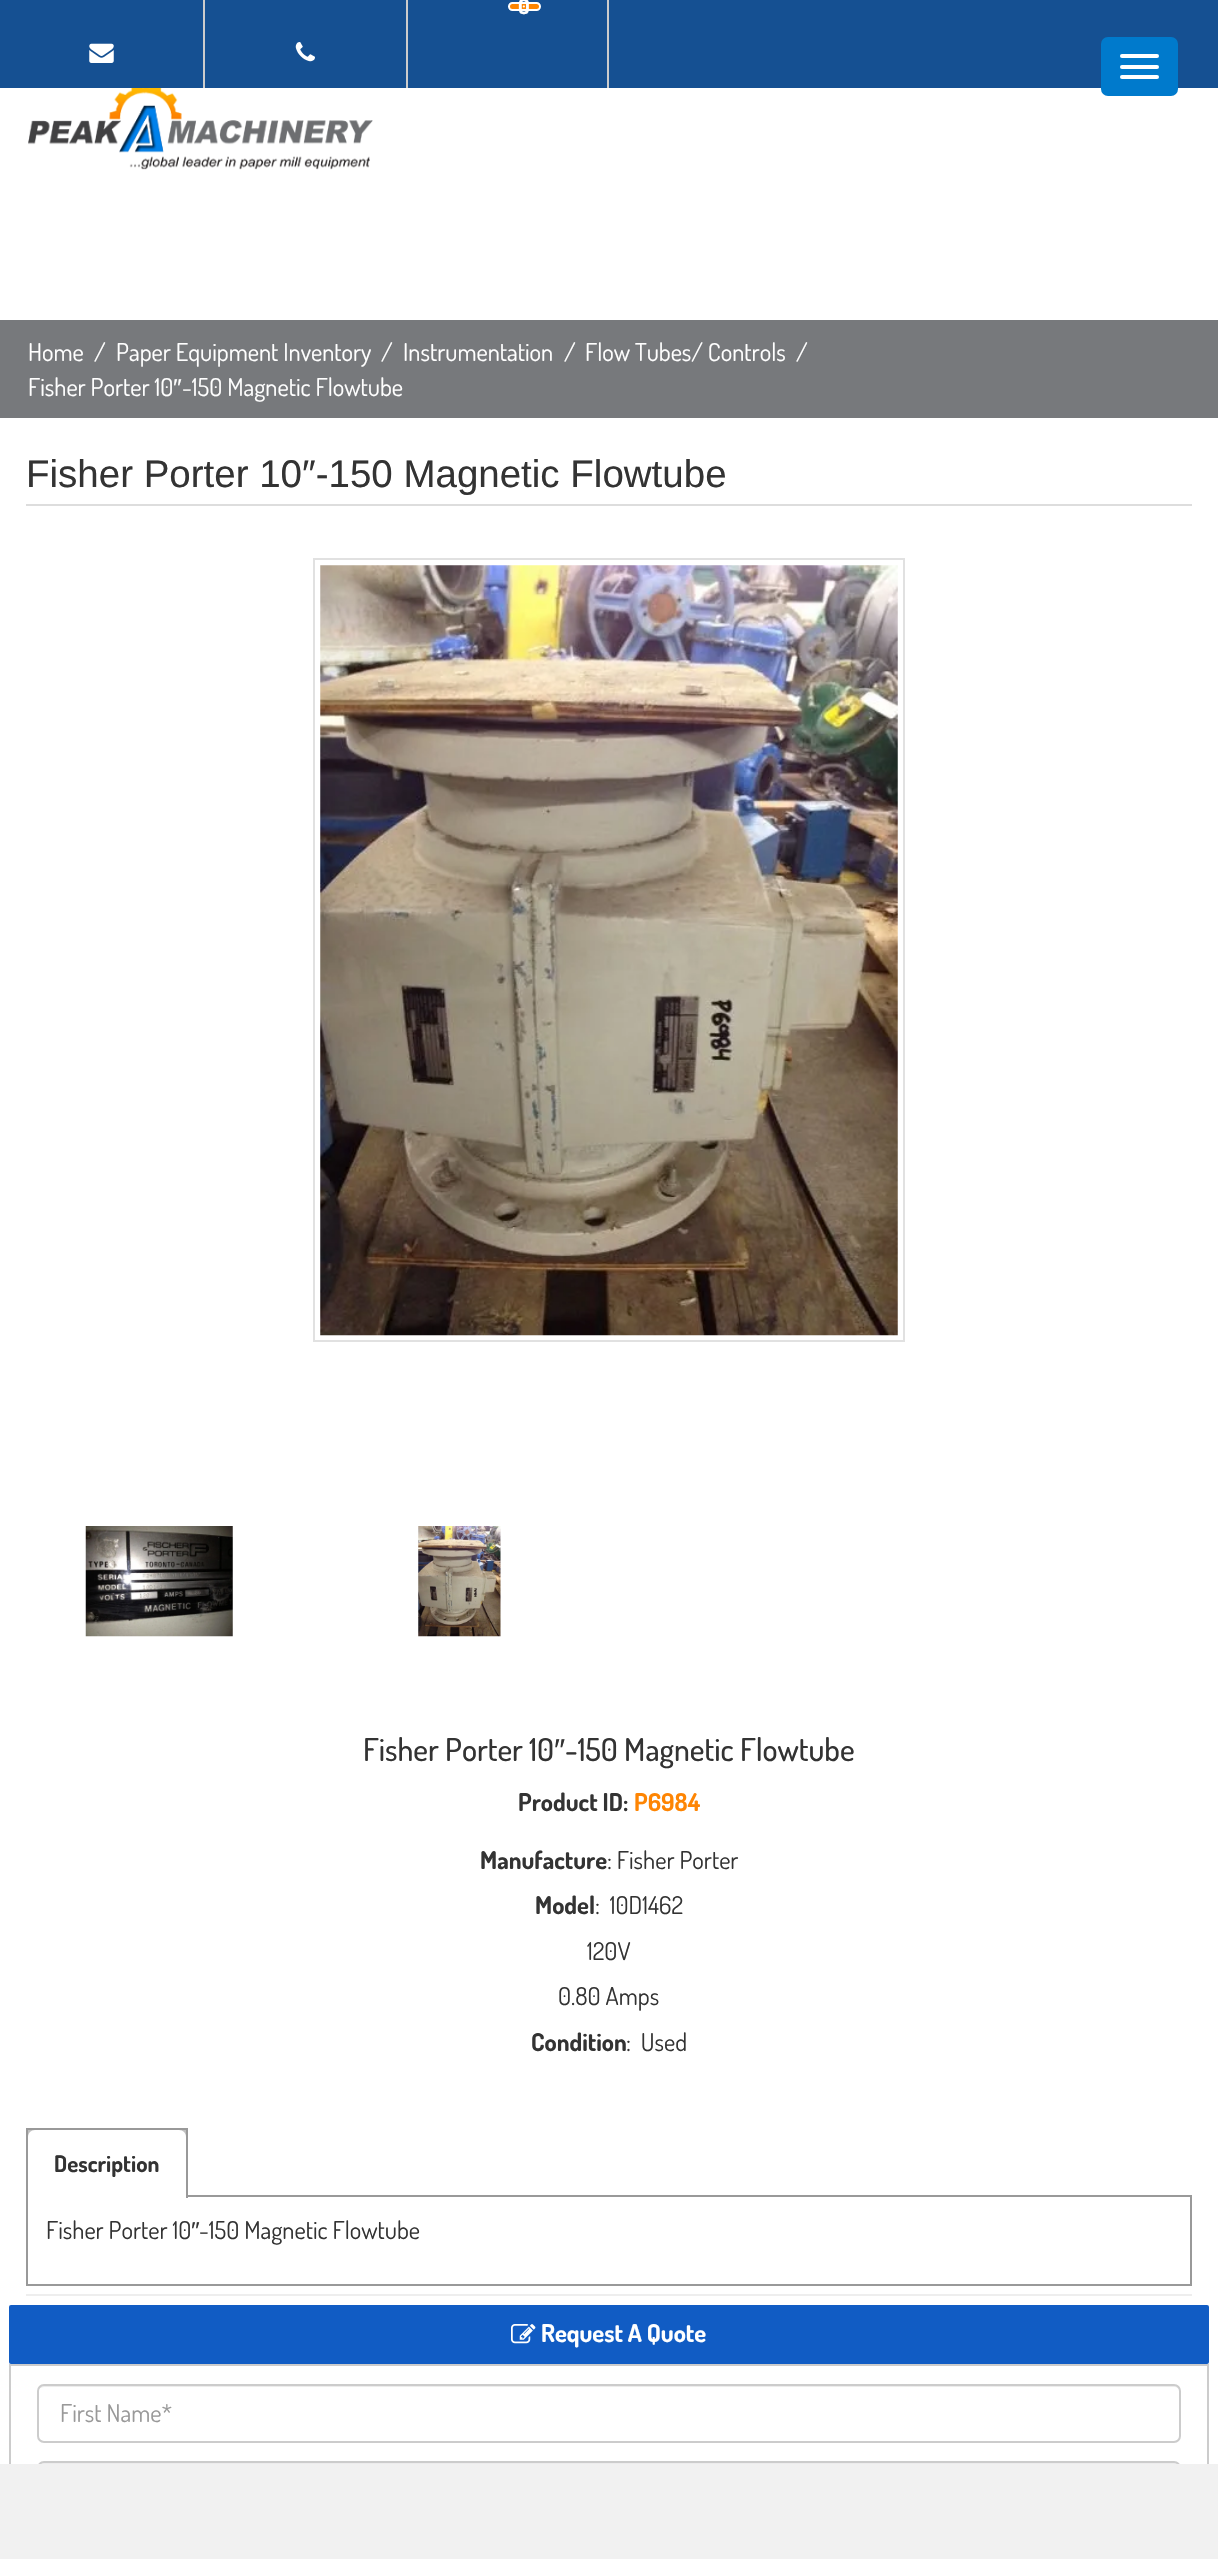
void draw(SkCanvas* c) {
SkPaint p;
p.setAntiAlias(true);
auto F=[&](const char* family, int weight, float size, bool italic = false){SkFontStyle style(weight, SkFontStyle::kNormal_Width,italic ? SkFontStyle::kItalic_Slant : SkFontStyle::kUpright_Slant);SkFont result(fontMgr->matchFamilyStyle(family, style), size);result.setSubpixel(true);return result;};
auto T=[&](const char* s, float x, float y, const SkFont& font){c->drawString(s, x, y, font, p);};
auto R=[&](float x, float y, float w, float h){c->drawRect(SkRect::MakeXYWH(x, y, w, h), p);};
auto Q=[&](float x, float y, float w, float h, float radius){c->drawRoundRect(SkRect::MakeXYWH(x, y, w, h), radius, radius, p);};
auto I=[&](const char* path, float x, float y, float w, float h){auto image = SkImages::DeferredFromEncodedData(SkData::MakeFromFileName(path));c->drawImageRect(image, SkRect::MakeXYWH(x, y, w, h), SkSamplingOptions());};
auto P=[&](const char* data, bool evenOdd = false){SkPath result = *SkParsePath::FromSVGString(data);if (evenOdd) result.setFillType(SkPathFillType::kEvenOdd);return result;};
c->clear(0xffffffff);
p.setColor(0xff155092);
R(0,0,1218,88);
p.setColor(0xffcccccc);
R(203,0,2,88);
I("1.png",295,42,20,20);
R(607,0,2,88);
R(406,0,2,88);
p.setColor(0xfffe8500);
c->drawRoundRect(SkRect::MakeXYWH(509,3,31,7),3.5,3.5,p);
p.setStroke(true);
p.setStrokeWidth(2);
p.setColor(0xffffffff);
c->drawRoundRect(SkRect::MakeXYWH(509,3,31,7),3.5,3.5,p);
auto f1 = F("Dosis",700,21);
p.setStroke(false);
T("0",518,14,f1);
I("2.png",89,43,25,20);
p.setColor(0xff007acc);
Q(1101,37,77,59,7);
p.setColor(0xffffffff);
Q(1120,54,39,4,2);
Q(1120,65,39,4,2);
Q(1120,75,39,4,2);
I("3.png",28,88,345,82);
p.setColor(0xff77797c);
R(0,320,1218,98);
auto f2 = F("Dosis",400,24.5);
p.setColor(0xffffffff);
T("Home",28,361,f2);
T("/",94,361,f2);
T("Paper Equipment Inventory",116,361,f2);
T("/",381,361,f2);
T("Instrumentation",403,361,f2);
T("/",564,361,f2);
T("Flow Tubes/ Controls",585,361,f2);
T("/",796,361,f2);
T("Fisher Porter 10",28,396,f2);
auto f3 = F("Liberation Sans",400,24.5);
T("″",173,396,f3);
T("-150 Magnetic Flowtube",182,396,f2);
p.setColor(0xffdddddd);
R(26,504,1166,2);
auto f4 = F("Liberation Sans",400,38.5);
p.setColor(0xff333333);
T("Fisher Porter 10″-150 Magnetic Flowtube",26,487,f4);
p.setStroke(true);
p.setColor(0xffe1e1e1);
c->drawRect(SkRect::MakeXYWH(314,559,590,782),p);
I("4.png",320,565,578,771);
I("5.png",85,1526,148,111);
I("6.png",418,1526,83,111);
auto f5 = F("Dosis",500,31.5);
p.setStroke(false);
p.setColor(0xff333333);
T("Fisher Porter 10",363,1761,f5);
auto f6 = F("Liberation Sans",400,31.5);
T("″",554,1761,f6);
T("-150 Magnetic Flowtube",565,1761,f5);
auto f7 = F("Dosis",700,24.5);
T("Product ID:",518,1811,f7);
p.setColor(0xfffe8503);
T("P6984",634,1811,f7);
p.setColor(0xff333333);
T("Manufacture",480,1869,f7);
T(": Fisher Porter",607,1869,f2);
T("Model",535,1914,f7);
T(":  10D1462",595,1914,f2);
T("120V",587,1960,f2);
T("0.80 Amps",558,2005,f2);
T("Condition",531,2051,f7);
T(":  Used",626,2051,f2);
p.setColor(0xffbfbfbf);
R(28,2130,158,7);
p.setColor(0xff999999);
R(26,2128,161,2);
p.setStroke(true);
c->drawRect(SkRect::MakeXYWH(27,2196,1164,89),p);
p.setStroke(false);
R(186,2128,2,70);
R(26,2128,2,70);
p.setColor(0xffffffff);
c->drawPath(P("M35 2130h144c4 0 7 3 7 7v61h-158v-61c0-4 3-7 7-7z"),p);
auto f8 = F("Dosis",700,22.75);
p.setColor(0xff333333);
T("Description",54,2172,f8);
T("Fisher Porter 10",46,2239,f2);
T("″",191,2239,f3);
T("-150 Magnetic Flowtube",199,2239,f2);
p.setColor(0xffeeeeee);
R(26,2294,1166,2);
p.setColor(0xff115cc4);
Q(9,2305,1200,59,2);
I("7.png",511,2324,25,20);
p.setColor(0xffffffff);
T("Request A Quote",541,2342,f7);
p.setStroke(true);
p.setColor(0xffcccccc);
c->drawRect(SkRect::MakeXYWH(10,2365,1198,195),p);
p.setStroke(false);
p.setColor(0xffececec);
c->drawPath(P("M44 2387h1130c3 0 6 2 6 5v-2c0-3-2-5-5-5h-1131c-2 0-5 2-5 4c1-1 3-2 5-2z"),p);
p.setStroke(true);
p.setColor(0xffcccccc);
c->drawRoundRect(SkRect::MakeXYWH(38,2385,1142,57),6,6,p);
p.setStroke(false);
p.setColor(0xff999999);
T("First Name*",60,2422,f2);
p.setColor(0xffececec);
c->drawPath(P("M44 2464h1130c3 0 6 2 6 5v-2c0-3-2-5-5-5h-1131c-2 0-5 2-5 4c1-1 3-2 5-2z"),p);
p.setStroke(true);
p.setColor(0xffcccccc);
c->drawRoundRect(SkRect::MakeXYWH(38,2462,1142,57),6,6,p);
p.setStroke(false);
p.setColor(0xfff1f1f1);
R(0,2464,1218,95);
}
